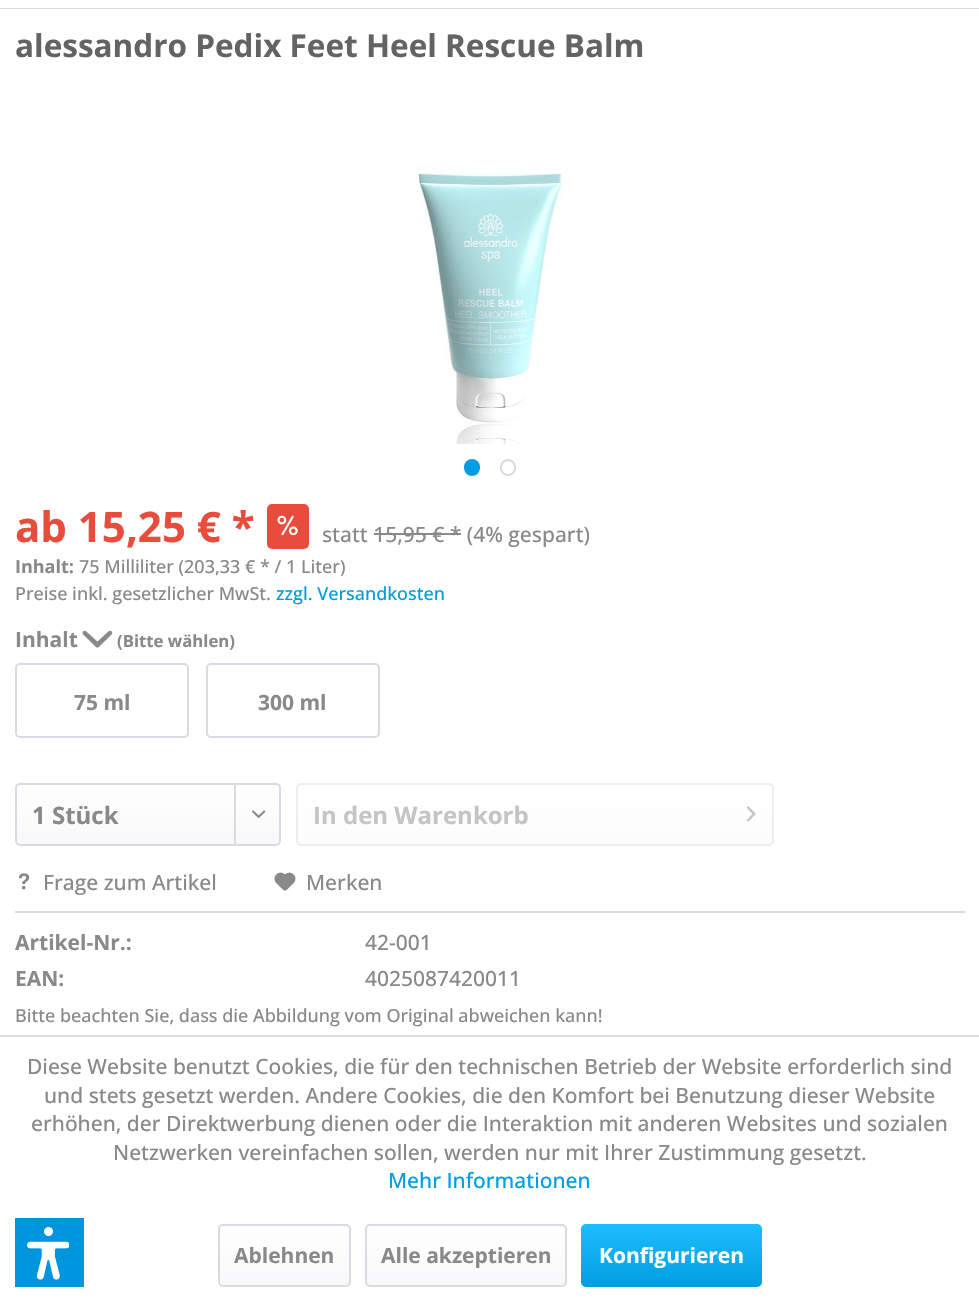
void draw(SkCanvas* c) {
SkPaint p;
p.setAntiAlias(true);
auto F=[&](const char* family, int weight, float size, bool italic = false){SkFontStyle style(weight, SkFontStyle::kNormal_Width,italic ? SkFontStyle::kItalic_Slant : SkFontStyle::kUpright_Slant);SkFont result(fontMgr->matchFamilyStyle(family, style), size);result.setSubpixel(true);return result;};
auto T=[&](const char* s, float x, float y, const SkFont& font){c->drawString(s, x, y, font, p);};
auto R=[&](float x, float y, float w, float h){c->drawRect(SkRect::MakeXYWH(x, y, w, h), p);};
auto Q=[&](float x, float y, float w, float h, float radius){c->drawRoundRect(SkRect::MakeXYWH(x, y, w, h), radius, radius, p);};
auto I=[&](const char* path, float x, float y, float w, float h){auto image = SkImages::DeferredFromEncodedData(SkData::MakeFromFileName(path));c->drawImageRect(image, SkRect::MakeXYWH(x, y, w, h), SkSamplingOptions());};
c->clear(0xffffffff);
p.setColor(0xffdadae5);
R(0,8,979,1);
auto f1 = F("Open Sans",700,31.5);
p.setColor(0xff636363);
T("alessandro Pedix Feet Heel Rescue Balm",15,57,f1);
I("1.png",417,173,145,271);
p.setColor(0xff009ee0);
c->drawRoundRect(SkRect::MakeXYWH(465,460,14,15),7,7,p);
p.setStroke(true);
p.setStrokeWidth(2);
c->drawRoundRect(SkRect::MakeXYWH(465,460,14,15),7,7,p);
p.setColor(0xffdadae5);
c->drawRoundRect(SkRect::MakeXYWH(501,460,14,15),7,7,p);
auto f2 = F("Open Sans",700,42);
p.setStroke(false);
p.setColor(0xffe74c3c);
T("ab 15,25 € *",15,542,f2);
Q(267,504,42,45,5);
I("2.png",277,515,21,21);
auto f3 = F("Open Sans",500,21);
p.setColor(0xff898989);
T("statt 15,95 € * (4% gespart)",322,542,f3);
R(374,533,87,2);
auto f4 = F("Open Sans",700,18);
T("Inhalt:",15,573,f4);
auto f5 = F("Open Sans",500,18);
T("75 Milliliter (203,33 € * / 1 Liter)",79,573,f5);
T("Preise inkl. gesetzlicher MwSt.",15,600,f5);
p.setColor(0xff009ee0);
T("zzgl. Versandkosten",276,600,f5);
auto f6 = F("Open Sans",700,21);
p.setColor(0xff898989);
T("Inhalt",15,647,f6);
I("3.png",82,630,31,18);
auto f7 = F("Open Sans",700,16.75);
T("(Bitte wählen)",117,647,f7);
p.setStroke(true);
p.setColor(0xffdadae5);
c->drawRoundRect(SkRect::MakeXYWH(16,664,172,73),4,4,p);
p.setStroke(false);
p.setColor(0xff898989);
T("75 ml",74,710,f6);
p.setStroke(true);
p.setColor(0xffdadae5);
c->drawRoundRect(SkRect::MakeXYWH(207,664,172,73),4,4,p);
p.setStroke(false);
p.setColor(0xff898989);
T("300 ml",258,710,f6);
{
const SkColor colors[] = {0xffffffff,0xfff8f8fa};
const float stops[] = {0,1};
const SkPoint ends[] = {{148,785}, {148,845}};
p.setShader(SkGradientShader::MakeLinear(ends, colors, stops, 2, SkTileMode::kClamp));
p.setAlpha(255);
}
Q(17,785,262,60,3);
p.setStroke(true);
p.setShader(nullptr);
p.setColor(0xffdadae5);
c->drawRoundRect(SkRect::MakeXYWH(16,784,264,61),4,4,p);
auto f8 = F("Open Sans",700,24);
p.setStroke(false);
p.setColor(0xff898989);
T("1 Stück",32,824,f8);
p.setColor(0xffdadae5);
R(234,785,2,60);
I("4.png",252,810,14,8);
{
const SkColor colors[] = {0xffffffff,0xfffcfcfd};
const float stops[] = {0,1};
const SkPoint ends[] = {{535,785}, {535,845}};
p.setShader(SkGradientShader::MakeLinear(ends, colors, stops, 2, SkTileMode::kClamp));
p.setAlpha(255);
}
Q(297,785,476,60,3);
p.setStroke(true);
p.setShader(nullptr);
p.setColor(0xffededf2);
c->drawRoundRect(SkRect::MakeXYWH(297,784,476,61),4,4,p);
p.setStroke(false);
p.setColor(0xffc4c4c4);
T("In den Warenkorb",313,824,f8);
I("5.png",747,806,9,16);
p.setColor(0xffdadae5);
R(15,911,950,2);
I("6.png",18,873,12,17);
p.setColor(0xff898989);
T("Frage zum Artikel",43,890,f3);
I("7.png",274,872,22,19);
T("Merken",306,890,f3);
T("Artikel-Nr.:",15,950,f6);
T("42-001",365,950,f3);
T("EAN:",15,986,f6);
T("4025087420011",365,986,f3);
T("Bitte beachten Sie, dass die Abbildung vom Original abweichen kann!",15,1022,f5);
p.setColor(0xffdadae5);
R(0,1035,979,2);
p.setColor(0xff898989);
T("Diese Website benutzt Cookies, die für den technischen Betrieb der Website erforderlich sind",27,1074,f3);
T("und stets gesetzt werden. Andere Cookies, die den Komfort bei Benutzung dieser Website",44,1103,f3);
T("erhöhen, der Direktwerbung dienen oder die Interaktion mit anderen Websites und sozialen",31,1131,f3);
T("Netzwerken vereinfachen sollen, werden nur mit Ihrer Zustimmung gesetzt.",113,1160,f3);
p.setColor(0xff009ee0);
T("Mehr Informationen",388,1188,f3);
{
const SkColor colors[] = {0xffffffff,0xfff8f8fa};
const float stops[] = {0,1};
const SkPoint ends[] = {{284,1226}, {284,1286}};
p.setShader(SkGradientShader::MakeLinear(ends, colors, stops, 2, SkTileMode::kClamp));
p.setAlpha(255);
}
Q(219,1226,131,60,3);
p.setStroke(true);
p.setShader(nullptr);
p.setColor(0xffdadae5);
c->drawRoundRect(SkRect::MakeXYWH(219,1225,131,61),4,4,p);
p.setStroke(false);
p.setColor(0xff898989);
T("Ablehnen",234,1263,f6);
{
const SkColor colors[] = {0xffffffff,0xfff8f8fa};
const float stops[] = {0,1};
const SkPoint ends[] = {{466,1226}, {466,1286}};
p.setShader(SkGradientShader::MakeLinear(ends, colors, stops, 2, SkTileMode::kClamp));
p.setAlpha(255);
}
Q(366,1226,200,60,3);
p.setStroke(true);
p.setShader(nullptr);
p.setColor(0xffdadae5);
c->drawRoundRect(SkRect::MakeXYWH(366,1225,200,61),4,4,p);
p.setStroke(false);
p.setColor(0xff898989);
T("Alle akzeptieren",381,1263,f6);
{
const SkColor colors[] = {0xff1ebdff,0xff009ee0};
const float stops[] = {0,1};
const SkPoint ends[] = {{671,1224}, {671,1287}};
p.setShader(SkGradientShader::MakeLinear(ends, colors, stops, 2, SkTileMode::kClamp));
p.setAlpha(255);
}
Q(581,1224,181,63,5);
p.setShader(nullptr);
p.setColor(0xffffffff);
T("Konfigurieren",599,1263,f6);
p.setColor(0xff0096de);
R(15,1218,69,69);
I("8.png",27,1227,42,53);
}
